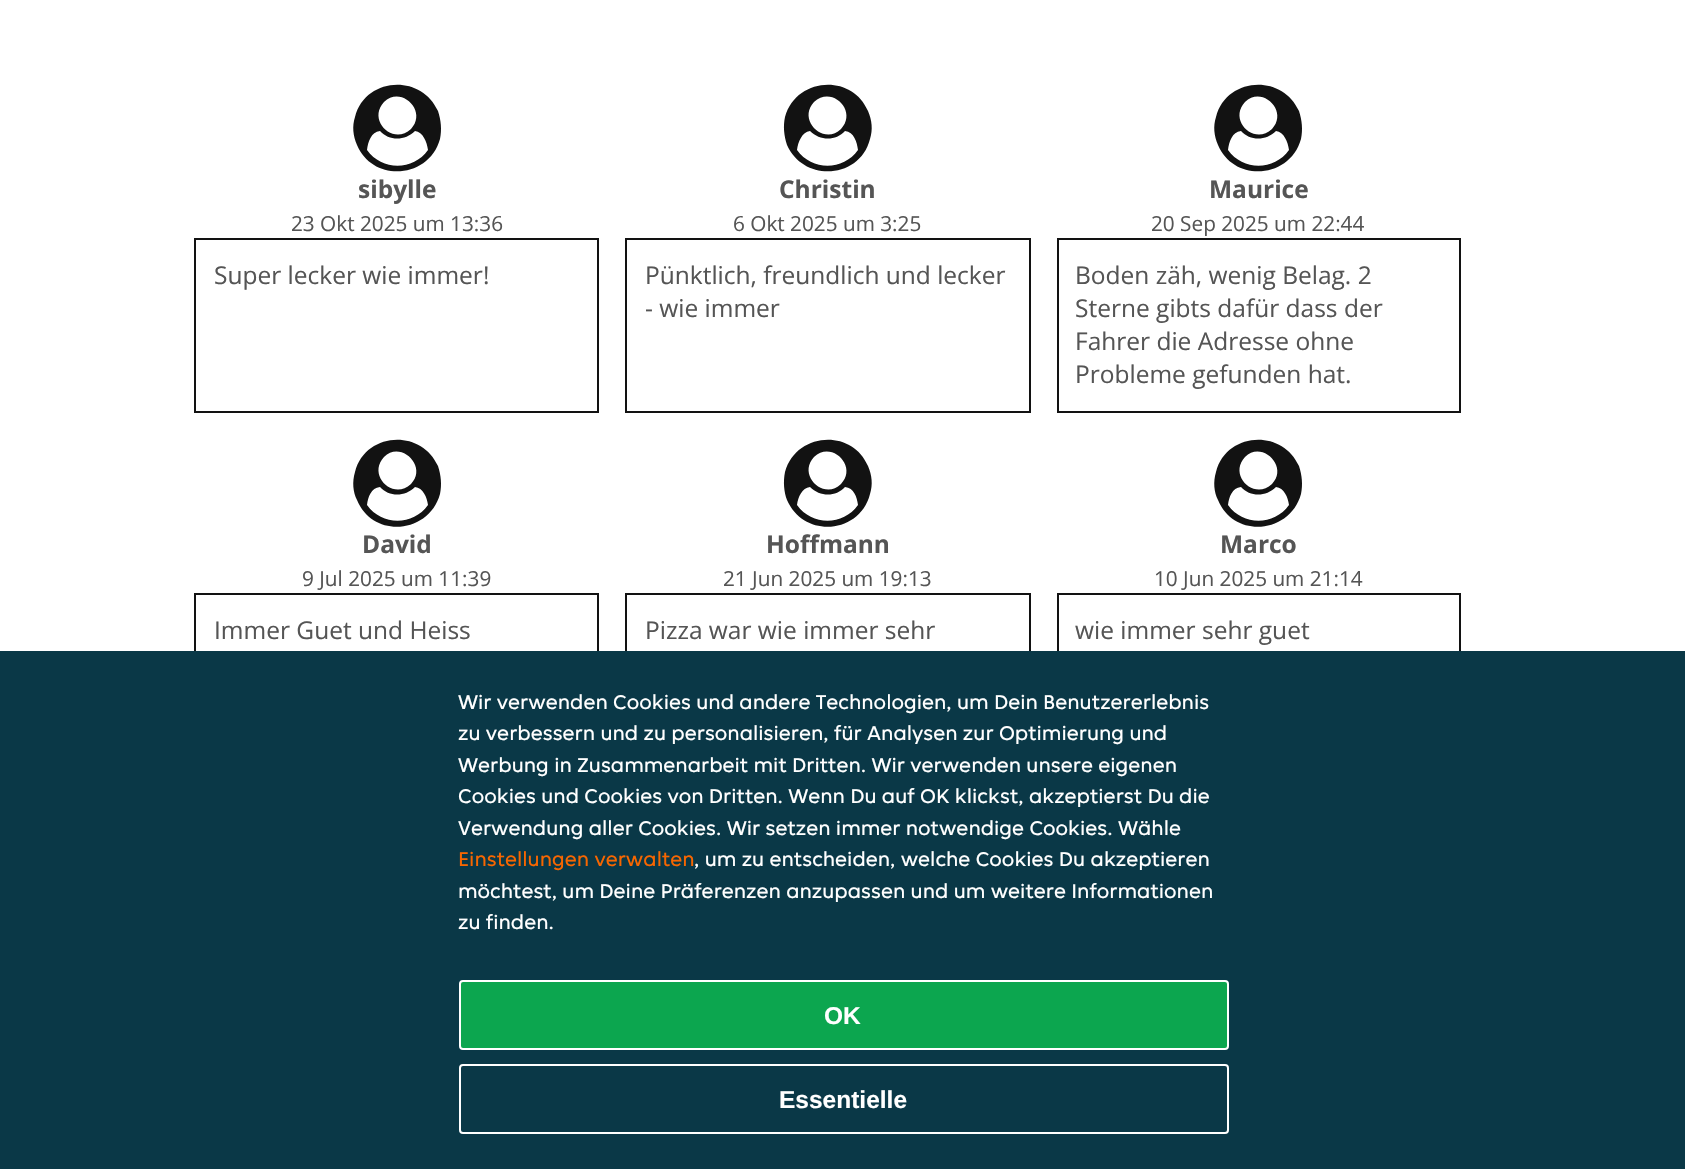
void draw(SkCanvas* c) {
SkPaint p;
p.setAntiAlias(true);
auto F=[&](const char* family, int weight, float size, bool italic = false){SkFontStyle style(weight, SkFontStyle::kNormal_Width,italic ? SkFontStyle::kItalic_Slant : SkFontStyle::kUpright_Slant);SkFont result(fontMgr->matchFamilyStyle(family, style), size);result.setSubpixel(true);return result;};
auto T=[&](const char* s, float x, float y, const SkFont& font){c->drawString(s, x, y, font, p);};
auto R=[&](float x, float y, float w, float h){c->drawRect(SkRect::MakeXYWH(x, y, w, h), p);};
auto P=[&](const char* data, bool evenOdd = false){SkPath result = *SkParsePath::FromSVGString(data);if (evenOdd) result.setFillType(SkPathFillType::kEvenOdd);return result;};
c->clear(0xffffffff);
p.setColor(0xff121212);
c->drawPath(P("M428 150c-1-8-5-18-13-19c-10 10-26 10-35 0c-9 1-12 11-13 19c15 21 46 21 61 0zm-17-21c17-18-10-44-27-27c-17 18 9 44 27 27zm27-18c3 9 4 19 2 28c-11 40-67 44-83 6c-4-9-5-19-2-28c10-40 66-44 83-6z"),p);
auto f1 = F("Open Sans",700,24.5);
p.setColor(0xff555555);
T("sibylle",358,198,f1);
auto f2 = F("Open Sans",400,20.75);
T("23 Okt 2025 um 13:36",291,231,f2);
p.setStroke(true);
p.setStrokeWidth(2);
p.setColor(0xff121212);
c->drawRect(SkRect::MakeXYWH(195,239,403,173),p);
auto f3 = F("Open Sans",400,24.5);
p.setStroke(false);
p.setColor(0xff555555);
T("Super lecker wie immer!",214,284,f3);
p.setColor(0xff121212);
c->drawPath(P("M858 150c-1-8-4-18-13-19c-9 10-25 10-35 0c-8 1-12 11-13 19c15 21 46 21 61 0zm-17-21c17-18-9-44-27-27c-17 18 10 44 27 27zm27-18c4 9 5 19 2 28c-10 40-66 44-83 6c-3-9-4-19-2-28c11-40 67-44 83-6z"),p);
p.setColor(0xff555555);
T("Christin",779,198,f1);
T("6 Okt 2025 um 3:25",733,231,f2);
p.setStroke(true);
p.setColor(0xff121212);
c->drawRect(SkRect::MakeXYWH(626,239,404,173),p);
p.setStroke(false);
p.setColor(0xff555555);
T("Pünktlich, freundlich und lecker",645,284,f3);
T("- wie immer",645,317,f3);
p.setColor(0xff121212);
c->drawPath(P("M1289 150c-1-8-5-18-13-19c-10 10-26 10-35 0c-9 1-12 11-13 19c15 21 46 21 61 0zm-17-21c17-18-10-44-27-27c-17 18 9 44 27 27zm27-18c3 9 4 19 2 28c-11 40-67 44-83 6c-4-9-5-19-2-28c10-40 66-44 83-6z"),p);
p.setColor(0xff555555);
T("Maurice",1209,198,f1);
T("20 Sep 2025 um 22:44",1151,231,f2);
p.setStroke(true);
p.setColor(0xff121212);
c->drawRect(SkRect::MakeXYWH(1058,239,402,173),p);
p.setStroke(false);
p.setColor(0xff555555);
T("Boden zäh, wenig Belag. 2",1075,284,f3);
T("Sterne gibts dafür dass der",1075,317,f3);
T("Fahrer die Adresse ohne",1075,350,f3);
T("Probleme gefunden hat.",1075,383,f3);
p.setColor(0xff121212);
c->drawPath(P("M428 505c-1-8-5-17-13-18c-10 10-26 10-35 0c-9 1-12 10-13 18c15 21 46 21 61 0zm-17-21c17-17-10-44-27-27c-17 18 9 44 27 27zm27-18c3 9 4 19 2 28c-11 40-67 45-83 6c-4-8-5-18-2-28c10-40 66-44 83-6z"),p);
p.setColor(0xff555555);
T("David",362,553,f1);
T("9 Jul 2025 um 11:39",302,586,f2);
p.setStroke(true);
p.setColor(0xff121212);
c->drawRect(SkRect::MakeXYWH(195,594,403,173),p);
p.setStroke(false);
p.setColor(0xff555555);
T("Immer Guet und Heiss",214,639,f3);
p.setColor(0xff121212);
c->drawPath(P("M858 505c-1-8-4-17-13-18c-9 10-25 10-35 0c-8 1-12 10-13 18c15 21 46 21 61 0zm-17-21c17-17-9-44-27-27c-17 18 10 44 27 27zm27-18c4 9 5 19 2 28c-10 40-66 45-83 6c-3-8-4-18-2-28c11-40 67-44 83-6z"),p);
p.setColor(0xff555555);
T("Hoffmann",766,553,f1);
T("21 Jun 2025 um 19:13",723,586,f2);
p.setStroke(true);
p.setColor(0xff121212);
c->drawRect(SkRect::MakeXYWH(626,594,404,173),p);
p.setStroke(false);
p.setColor(0xff555555);
T("Pizza war wie immer sehr",645,639,f3);
p.setColor(0xff121212);
c->drawPath(P("M1289 505c-1-8-5-17-13-18c-10 10-26 10-35 0c-9 1-12 10-13 18c15 21 46 21 61 0zm-17-21c17-17-10-44-27-27c-17 18 9 44 27 27zm27-18c3 9 4 19 2 28c-11 40-67 45-83 6c-4-8-5-18-2-28c10-40 66-44 83-6z"),p);
p.setColor(0xff555555);
T("Marco",1220,553,f1);
T("10 Jun 2025 um 21:14",1154,586,f2);
p.setStroke(true);
p.setColor(0xff121212);
c->drawRect(SkRect::MakeXYWH(1058,594,402,173),p);
p.setStroke(false);
p.setColor(0xff555555);
T("wie immer sehr guet",1075,639,f3);
p.setColor(0xff0a3847);
R(0,651,1685,518);
auto f4 = F("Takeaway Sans",400,21);
p.setColor(0xffffffff);
T("Wir verwenden Cookies und andere Technologien, um Dein Benutzererlebnis",458,709,f4);
T("zu verbessern und zu personalisieren, für Analysen zur Optimierung und",458,740,f4);
T("Werbung in Zusammenarbeit mit Dritten. Wir verwenden unsere eigenen",458,772,f4);
T("Cookies und Cookies von Dritten. Wenn Du auf OK klickst, akzeptierst Du die",458,803,f4);
T("Verwendung aller Cookies. Wir setzen immer notwendige Cookies. Wähle",458,835,f4);
p.setColor(0xfff86600);
T("Einstellungen verwalten",458,866,f4);
p.setColor(0xffffffff);
T(", um zu entscheiden, welche Cookies Du akzeptieren",694,866,f4);
T("möchtest, um Deine Präferenzen anzupassen und um weitere Informationen",458,898,f4);
T("zu finden.",458,929,f4);
p.setColor(0xff0ca64f);
c->drawRoundRect(SkRect::MakeXYWH(460,981,768,68),3,3,p);
p.setStroke(true);
p.setColor(0xffffffff);
c->drawRoundRect(SkRect::MakeXYWH(460,981,768,68),3,3,p);
auto f5 = F("Liberation Sans",700,24.5);
p.setStroke(false);
T("OK",824,1024,f5);
p.setStroke(true);
c->drawRoundRect(SkRect::MakeXYWH(460,1065,768,68),3,3,p);
p.setStroke(false);
T("Essentielle",779,1108,f5);
}
